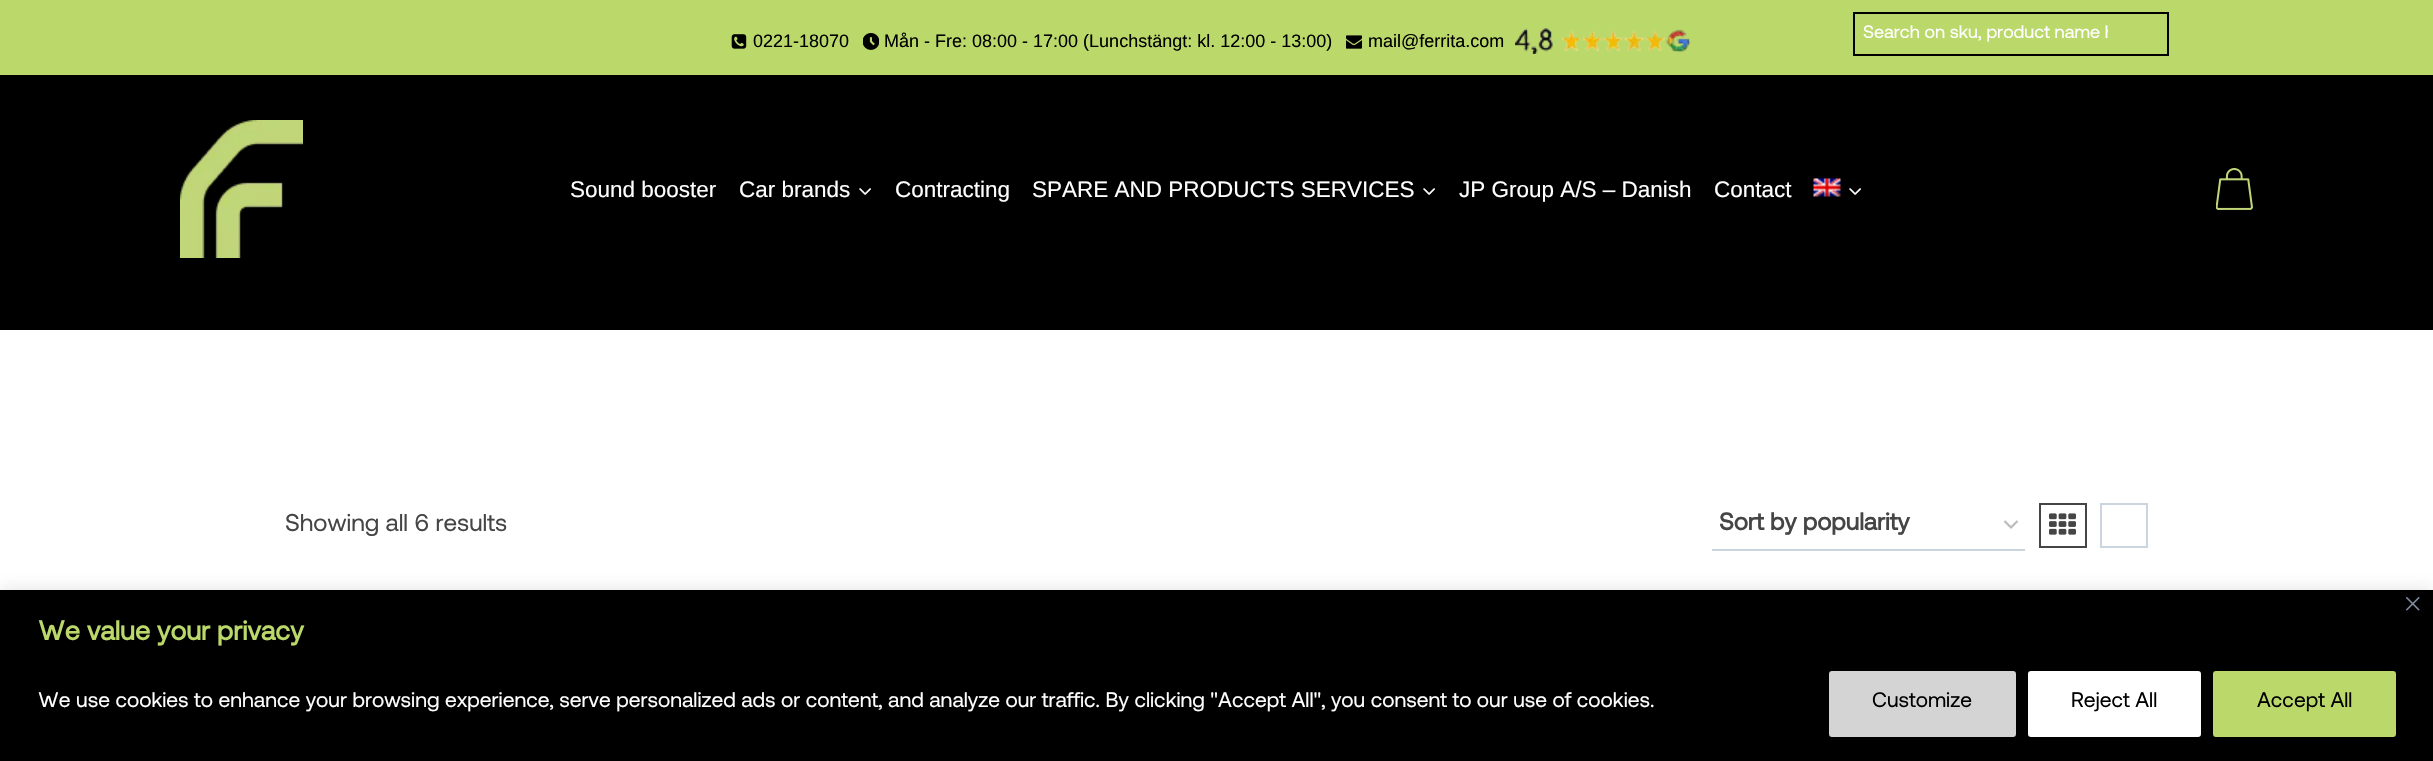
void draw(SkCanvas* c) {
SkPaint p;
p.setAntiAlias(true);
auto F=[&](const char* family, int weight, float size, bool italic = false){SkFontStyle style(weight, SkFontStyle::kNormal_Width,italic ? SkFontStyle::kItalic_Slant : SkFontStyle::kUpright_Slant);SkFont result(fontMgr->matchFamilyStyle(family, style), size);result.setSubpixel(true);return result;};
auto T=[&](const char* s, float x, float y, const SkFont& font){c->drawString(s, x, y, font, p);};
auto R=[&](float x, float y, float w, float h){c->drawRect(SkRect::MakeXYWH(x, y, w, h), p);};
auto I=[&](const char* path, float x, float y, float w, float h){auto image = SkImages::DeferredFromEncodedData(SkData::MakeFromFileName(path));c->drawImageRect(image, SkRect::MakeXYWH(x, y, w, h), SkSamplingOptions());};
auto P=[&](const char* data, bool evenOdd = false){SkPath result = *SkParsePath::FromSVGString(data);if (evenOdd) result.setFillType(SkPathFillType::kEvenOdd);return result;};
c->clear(0xffffffff);
p.setColor(0xff000000);
R(0,75,2433,255);
p.setColor(0xffbbd86b);
R(0,0,2433,75);
I("1.png",731,34,16,15);
auto f1 = F("Liberation Sans",400,18);
p.setColor(0xff000000);
T("0221-18070",753,47,f1);
I("2.png",863,33,16,17);
T("Mån - Fre: 08:00 - 17:00 (Lunchstängt: kl. 12:00 - 13:00)",884,47,f1);
I("3.png",1346,35,16,14);
T("mail@ferrita.com",1368,47,f1);
I("4.png",1515,28,176,26);
p.setStroke(true);
p.setStrokeWidth(2);
c->drawRect(SkRect::MakeXYWH(1854,13,314,42),p);
c->save();
c->clipRect(SkRect::MakeXYWH(1863,23,245,21));
auto f2 = F("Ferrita",400,18);
p.setStroke(false);
p.setColor(0xffffffff);
T("Search on sku, product name h",1863,38,f2);
c->restore();
I("5.png",180,120,123,138);
auto f3 = F("Liberation Sans",400,22.5);
T("Sound booster",570,197,f3);
T("Car brands",739,197,f3);
I("6.png",859,188,12,7);
T("Contracting",895,197,f3);
T("SPARE AND PRODUCTS SERVICES",1032,197,f3);
I("6.png",1423,188,12,7);
T("JP Group A/S – Danish",1459,197,f3);
T("Contact",1714,197,f3);
I("7.png",1813,178,28,19);
I("6.png",1849,188,12,7);
I("8.png",2216,168,37,42);
auto f4 = F("Ferrita",400,24.25);
p.setColor(0xff454545);
T("Showing all 6 results",285,531,f4);
p.setStroke(true);
p.setStrokeWidth(2.2);
p.setColor(0xffbbbbbb);
c->drawPath(P("M2004.5 521l6.5 6.5l6.5-6.5"),p);
p.setStroke(false);
p.setColor(0xffcbd5e0);
R(1712,549,313,2);
auto f5 = F("Ferrita",700,24.25);
p.setColor(0xff454545);
T("Sort by popularity",1719,530,f5);
p.setStroke(true);
p.setStrokeWidth(2);
c->drawRect(SkRect::MakeXYWH(2040,504,46,43),p);
I("9.png",2049,513,27,22);
p.setColor(0xffcbd5e0);
c->drawRect(SkRect::MakeXYWH(2101,504,46,43),p);
p.setStroke(false);
p.setColor(0x4dacabab);
p.setMaskFilter(SkMaskFilter::MakeBlur(kNormal_SkBlurStyle, 7.5));
c->drawRect(SkRect::MakeXYWH(0,588,2433,173),p);
p.setMaskFilter(nullptr);
p.setColor(0xff000000);
R(0,590,2433,171);
I("10.png",2406,597,14,14);
auto f6 = F("Ferrita",700,27);
p.setColor(0xffbbd86b);
T("We value your privacy",38,640,f6);
auto f7 = F("Ferrita",400,21);
p.setColor(0xffffffff);
T("We use cookies to enhance your browsing experience, serve personalized ads or content, and analyze our traffic. By clicking \"Accept All\", you consent to our use of cookies.",38,707,f7);
p.setColor(0xffd4d4d4);
c->drawRoundRect(SkRect::MakeXYWH(1830.5,672.5,184,63),1.5,1.5,p);
p.setStroke(true);
p.setStrokeWidth(3);
c->drawRoundRect(SkRect::MakeXYWH(1830.5,672.5,184,63),1.5,1.5,p);
p.setStroke(false);
p.setColor(0xff000000);
T("Customize",1872,707,f7);
p.setColor(0xffffffff);
c->drawRoundRect(SkRect::MakeXYWH(2029.5,672.5,170,63),1.5,1.5,p);
p.setStroke(true);
c->drawRoundRect(SkRect::MakeXYWH(2029.5,672.5,170,63),1.5,1.5,p);
p.setStroke(false);
p.setColor(0xff000000);
T("Reject All",2071,707,f7);
p.setColor(0xffbbd86b);
c->drawRoundRect(SkRect::MakeXYWH(2214.5,672.5,180,63),1.5,1.5,p);
p.setStroke(true);
c->drawRoundRect(SkRect::MakeXYWH(2214.5,672.5,180,63),1.5,1.5,p);
p.setStroke(false);
p.setColor(0xff000000);
T("Accept All",2257,707,f7);
}
